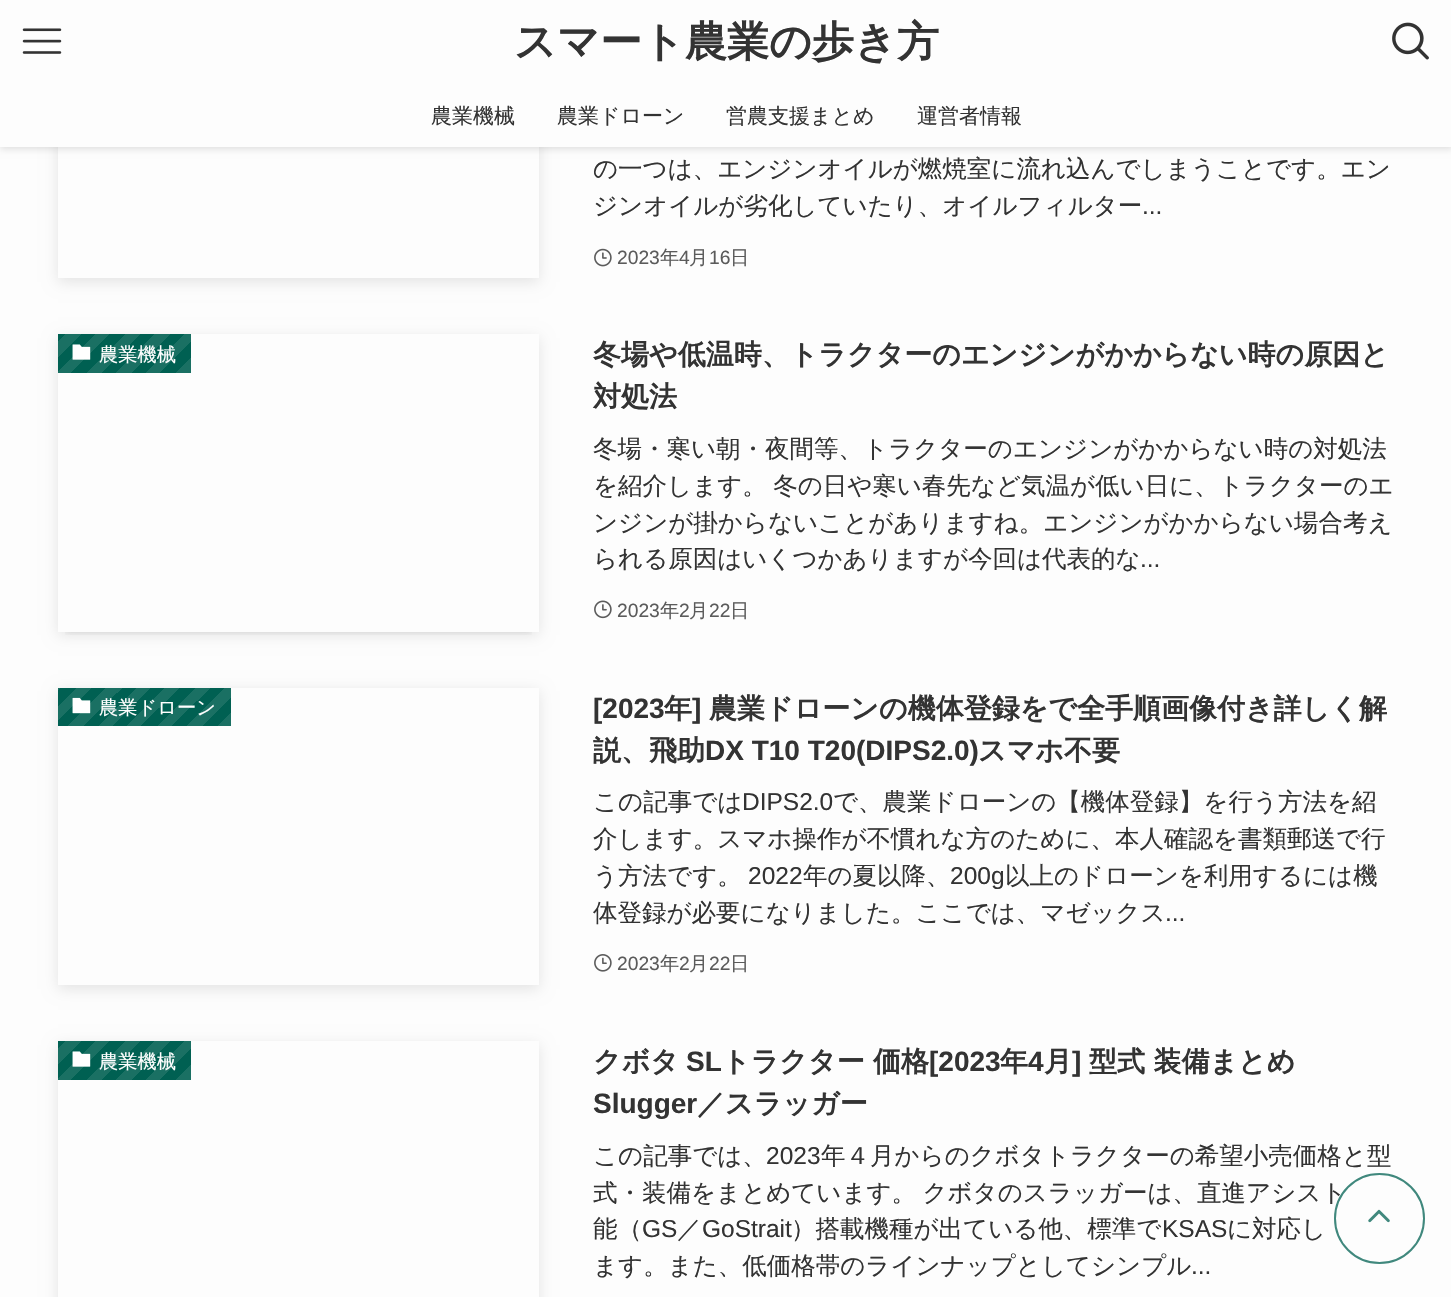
void draw(SkCanvas* c) {
SkPaint p;
p.setAntiAlias(true);
auto F=[&](const char* family, int weight, float size, bool italic = false){SkFontStyle style(weight, SkFontStyle::kNormal_Width,italic ? SkFontStyle::kItalic_Slant : SkFontStyle::kUpright_Slant);SkFont result(fontMgr->matchFamilyStyle(family, style), size);result.setSubpixel(true);return result;};
auto T=[&](const char* s, float x, float y, const SkFont& font){c->drawString(s, x, y, font, p);};
auto L=[&](const char* s, float x, float y, const SkFont& font, const SkPaint& ink, float letter, float word){std::vector<SkGlyphID> glyphs(font.countText(s, strlen(s), SkTextEncoding::kUTF8));std::vector<float> xs(glyphs.size());font.textToGlyphs(s, strlen(s), SkTextEncoding::kUTF8, glyphs);font.getXPos(glyphs, xs, x);float extra = 0;for (size_t i = 0; i < glyphs.size(); i++) {xs[i] += extra;extra += letter + word * (glyphs[i] == font.unicharToGlyph(' '));}c->drawTextBlob(SkTextBlob::MakeFromPosHGlyphs(glyphs, xs, y, font), 0, 0, ink);};
auto R=[&](float x, float y, float w, float h){c->drawRect(SkRect::MakeXYWH(x, y, w, h), p);};
auto I=[&](const char* path, float x, float y, float w, float h){auto image = SkImages::DeferredFromEncodedData(SkData::MakeFromFileName(path));c->drawImageRect(image, SkRect::MakeXYWH(x, y, w, h), SkSamplingOptions());};
auto P=[&](const char* data, bool evenOdd = false){SkPath result = *SkParsePath::FromSVGString(data);if (evenOdd) result.setFillType(SkPathFillType::kEvenOdd);return result;};
c->clear(0xfffdfdfd);
p.setColor(0x1f000000);
p.setMaskFilter(SkMaskFilter::MakeBlur(kNormal_SkBlurStyle, 3.5));
c->drawRect(SkRect::MakeXYWH(0,2,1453,147),p);
p.setMaskFilter(nullptr);
c->save();
c->clipPath(P("M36 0h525v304h-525zm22-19h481v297h-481z",true),true);
p.setColor(0x1a000000);
p.setMaskFilter(SkMaskFilter::MakeBlur(kNormal_SkBlurStyle, 7));
c->drawRect(SkRect::MakeXYWH(58,-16,481,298),p);
p.setMaskFilter(nullptr);
c->restore();
p.setColor(0xfffdfdfd);
R(0,0,1451,147);
I("1.png",22,28,40,26);
auto f1 = F("WenQuanYi Zen Hei",700,42);
p.setColor(0xff333333);
T("スマート農業の歩き方",514,56,f1);
I("2.png",1392,22,37,38);
auto f2 = F("WenQuanYi Zen Hei",500,21);
T("農業機械",431,123,f2);
T("農業ドローン",557,123,f2);
T("営農支援まとめ",726,123,f2);
T("運営者情報",917,123,f2);
auto f3 = F("WenQuanYi Zen Hei",500,24.5);
T("の一つは、エンジンオイルが燃焼室に流れ込んでしまうことです。エン",593,177,f3);
T("ジンオイルが劣化していたり、オイルフィルター",593,214,f3);
auto f4 = F("Liberation Sans",400,24.5);
T("...",1142,214,f4);
I("3.png",594,248,18,19);
auto f5 = F("Liberation Sans",400,19.25);
p.setColor(0xff5b5b5b);
T("2023",617,264,f5);
auto f6 = F("WenQuanYi Zen Hei",500,19.25);
T("年",660,264,f6);
T("4",679,264,f5);
T("月",689,264,f6);
T("16",709,264,f5);
T("日",730,264,f6);
c->save();
c->clipRect(SkRect::MakeXYWH(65,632,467,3));
p.setColor(0x1a000000);
p.setMaskFilter(SkMaskFilter::MakeBlur(kNormal_SkBlurStyle, 3.5));
c->drawRect(SkRect::MakeXYWH(65,348,467,284),p);
p.setMaskFilter(nullptr);
c->restore();
c->save();
c->clipPath(P("M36 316h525v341h-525zm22 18h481v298h-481z",true),true);
p.setMaskFilter(SkMaskFilter::MakeBlur(kNormal_SkBlurStyle, 7));
c->drawRect(SkRect::MakeXYWH(58,338,481,297),p);
p.setMaskFilter(nullptr);
c->restore();
{
const SkColor colors[] = {0xff1a7063,0xff1a7063,0xff006052,0xff006052,0xff1a7063,0xff1a7063,0xff006052,0xff006052,0xff1a7063,0xff1a7063,0xff006052,0xff006052,0xff1a7063,0xff1a7063,0xff006052,0xff006052,0xff1a7063,0xff1a7063,0xff006052,0xff006052,0xff1a7063,0xff1a7063,0xff006052,0xff006052};
const float stops[] = {0,.08,.08,.17,.17,.25,.25,.33,.33,.42,.42,.5,.5,.58,.58,.67,.67,.75,.75,.83,.83,.92,.92,1};
const SkPoint ends[] = {{167,396}, {78,307}};
p.setShader(SkGradientShader::MakeLinear(ends, colors, stops, 24, SkTileMode::kClamp));
p.setAlpha(255);
}
R(58,334,133,39);
I("4.png",72,344,19,16);
p.setShader(nullptr);
p.setColor(0xffffffff);
T("農業機械",99,361,f6);
auto f7 = F("WenQuanYi Zen Hei",700,28);
p.setColor(0xff333333);
T("冬場や低温時、トラクターのエンジンがかからない時の原因と",593,364,f7);
T("対処法",593,406,f7);
T("冬場・寒い朝・夜間等、トラクターのエンジンがかからない時の対処法",593,457,f3);
L("を紹介します。 冬の日や寒い春先など気温が低い日に、トラクターのエ",593,494,f3,p,0,-1);
T("ンジンが掛からないことがありますね。エンジンがかからない場合考え",593,531,f3);
T("られる原因はいくつかありますが今回は代表的な",593,567,f3);
T("...",1140,567,f4);
I("5.png",594,600,18,19);
p.setColor(0xff5b5b5b);
T("2023",617,617,f5);
T("年",660,617,f6);
T("2",679,617,f5);
T("月",689,617,f6);
T("22",709,617,f5);
T("日",730,617,f6);
c->save();
c->clipPath(P("M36 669h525v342h-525zm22 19h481v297h-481z",true),true);
p.setColor(0x1a000000);
p.setMaskFilter(SkMaskFilter::MakeBlur(kNormal_SkBlurStyle, 7));
c->drawRect(SkRect::MakeXYWH(58,691,481,298),p);
p.setMaskFilter(nullptr);
c->restore();
{
const SkColor colors[] = {0xff1a7063,0xff1a7063,0xff006052,0xff006052,0xff1a7063,0xff1a7063,0xff006052,0xff006052,0xff1a7063,0xff1a7063,0xff006052,0xff006052,0xff1a7063,0xff1a7063,0xff006052,0xff006052,0xff1a7063,0xff1a7063,0xff006052,0xff006052,0xff1a7063,0xff1a7063,0xff006052,0xff006052,0xff1a7063,0xff1a7063,0xff006052,0xff006052,0xff1a7063,0xff1a7063,0xff006052,0xff006052};
const float stops[] = {0,.06,.06,.12,.12,.19,.19,.25,.25,.31,.31,.38,.38,.44,.44,.5,.5,.56,.56,.62,.62,.69,.69,.75,.75,.81,.81,.88,.88,.94,.94,1};
const SkPoint ends[] = {{197,760}, {79,641}};
p.setShader(SkGradientShader::MakeLinear(ends, colors, stops, 32, SkTileMode::kClamp));
p.setAlpha(255);
}
R(58,688,173,38);
I("6.png",72,697,19,17);
p.setShader(nullptr);
p.setColor(0xffffffff);
T("農業ドローン",99,714,f6);
auto f8 = F("Liberation Sans",700,28);
p.setColor(0xff333333);
T("[2023",593,718,f8);
T("年",664,718,f7);
T("]",692,718,f8);
T("農業ドローンの機体登録をで全手順画像付き詳しく解",709,718,f7);
T("説、飛助",593,760,f7);
T("DX T10 T20(DIPS2.0)",705,760,f8);
T("スマホ不要",978,760,f7);
T("この記事では",593,810,f3);
T("DIPS2.0",742,810,f4);
T("で、農業ドローンの【機体登録】を行う方法を紹",833,810,f3);
T("介します。スマホ操作が不慣れな方のために、本人確認を書類郵送で行",593,847,f3);
T("う方法です。",593,884,f3);
T("2022",748,884,f4);
T("年の夏以降、",803,884,f3);
T("200g",950,884,f4);
T("以上のドローンを利用するには機",1005,884,f3);
T("体登録が必要になりました。ここでは、マゼックス",593,921,f3);
T("...",1165,921,f4);
I("7.png",594,954,18,18);
p.setColor(0xff5b5b5b);
T("2023",617,970,f5);
T("年",660,970,f6);
T("2",679,970,f5);
T("月",689,970,f6);
T("22",709,970,f5);
T("日",730,970,f6);
p.setColor(0x1a000000);
p.setMaskFilter(SkMaskFilter::MakeBlur(kNormal_SkBlurStyle, 7));
c->drawRect(SkRect::MakeXYWH(58,1045,481,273),p);
p.setMaskFilter(nullptr);
{
const SkColor colors[] = {0xfffdfdfd,0xfffdfdfd};
const float stops[] = {0,1};
const SkPoint ends[] = {{104,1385}, {493,995}};
p.setShader(SkGradientShader::MakeLinear(ends, colors, stops, 2, SkTileMode::kClamp));
p.setAlpha(255);
}
R(58,1041,481,256);
{
const SkColor colors[] = {0xff1a7063,0xff1a7063,0xff006052,0xff006052,0xff1a7063,0xff1a7063,0xff006052,0xff006052,0xff1a7063,0xff1a7063,0xff006052,0xff006052,0xff1a7063,0xff1a7063,0xff006052,0xff006052,0xff1a7063,0xff1a7063,0xff006052,0xff006052,0xff1a7063,0xff1a7063,0xff006052,0xff006052};
const float stops[] = {0,.08,.08,.17,.17,.25,.25,.33,.33,.42,.42,.5,.5,.58,.58,.67,.67,.75,.75,.83,.83,.92,.92,1};
const SkPoint ends[] = {{167,1103}, {78,1014}};
p.setShader(SkGradientShader::MakeLinear(ends, colors, stops, 24, SkTileMode::kClamp));
p.setAlpha(255);
}
R(58,1041,133,39);
I("4.png",72,1051,19,16);
p.setShader(nullptr);
p.setColor(0xffffffff);
T("農業機械",99,1068,f6);
p.setColor(0xff333333);
T("クボタ",593,1071,f7);
T("SL",686,1071,f8);
T("トラクター 価格",722,1071,f7);
T("[2023",929,1071,f8);
T("年",1000,1071,f7);
T("4",1028,1071,f8);
T("月",1044,1071,f7);
T("]",1072,1071,f8);
T("型式 装備まとめ",1089,1071,f7);
T("Slugger",593,1113,f8);
T("／スラッガー",697,1113,f7);
T("この記事では、",593,1164,f3);
T("2023",766,1164,f4);
T("年４月からのクボタトラクターの希望小売価格と型",821,1164,f3);
L("式・装備をまとめています。 クボタのスラッガーは、直進アシスト",593,1201,f3,p,0,-1);
T("能（",593,1237,f3);
T("GS",642,1237,f4);
T("／",677,1237,f3);
T("GoStrait",702,1237,f4);
T("）搭載機種が出ている他、標準で",791,1237,f3);
T("KSAS",1162,1237,f4);
T("に対応し",1227,1237,f3);
T("ます。また、低価格帯のラインナップとしてシンプル",593,1274,f3);
T("...",1191,1274,f4);
p.setStroke(true);
p.setStrokeWidth(2);
p.setColor(0xbf006052);
c->drawCircle(1379.5,1218.5,44.5,p);
I("8.png",1368,1209,22,14);
}
